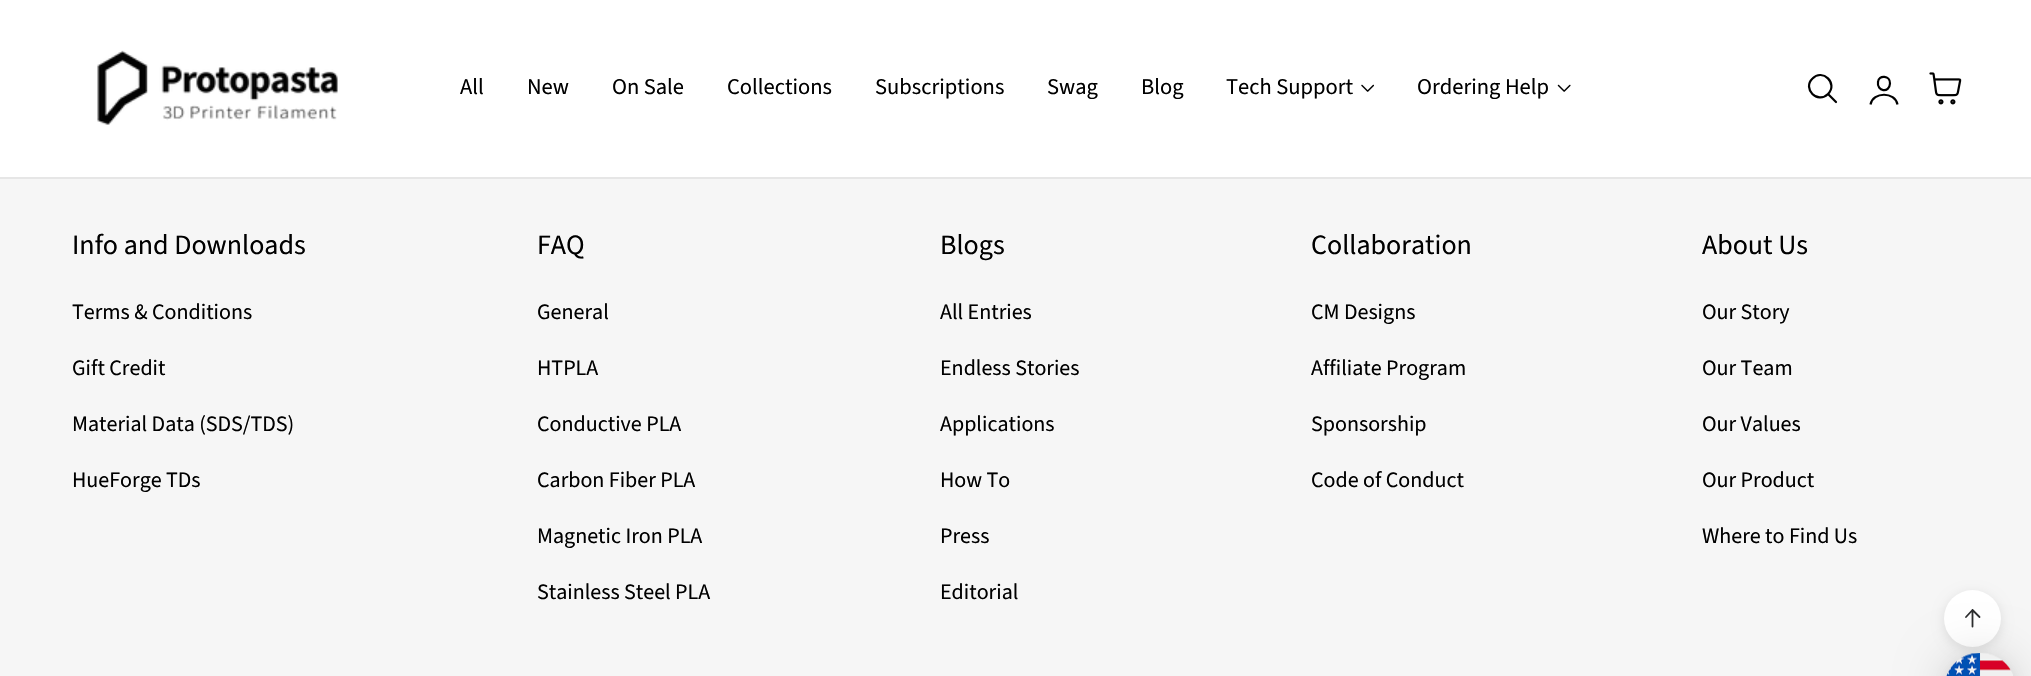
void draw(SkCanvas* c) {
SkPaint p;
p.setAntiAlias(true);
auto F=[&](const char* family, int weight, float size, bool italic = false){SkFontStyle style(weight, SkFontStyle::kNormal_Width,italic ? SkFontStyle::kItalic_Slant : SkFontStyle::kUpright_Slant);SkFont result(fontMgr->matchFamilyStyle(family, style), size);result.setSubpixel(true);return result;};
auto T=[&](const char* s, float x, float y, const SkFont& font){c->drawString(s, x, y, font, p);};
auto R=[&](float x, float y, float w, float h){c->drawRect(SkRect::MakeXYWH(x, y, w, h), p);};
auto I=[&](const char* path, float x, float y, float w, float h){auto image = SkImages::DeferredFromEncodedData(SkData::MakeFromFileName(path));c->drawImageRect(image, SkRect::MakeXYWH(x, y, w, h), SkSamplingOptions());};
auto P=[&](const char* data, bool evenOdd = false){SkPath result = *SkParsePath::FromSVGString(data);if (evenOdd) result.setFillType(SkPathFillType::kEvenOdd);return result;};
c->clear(0xfff6f6f6);
p.setColor(0xffffffff);
R(0,0,2031,177);
p.setColor(0xffe6e6e6);
R(0,177,2031,2);
I("1.png",97,50,241,75);
auto f1 = F("Source Sans Pro",400,22.5);
p.setColor(0xff000000);
T("All",460,94,f1);
T("New",527,94,f1);
T("On Sale",612,94,f1);
T("Collections",727,94,f1);
T("Subscriptions",875,94,f1);
T("Swag",1047,94,f1);
T("Blog",1141,94,f1);
T("Tech Support",1226,94,f1);
I("2.png",1361,84,13,8);
T("Ordering Help",1417,94,f1);
I("3.png",1557,84,14,8);
p.setStroke(true);
p.setStrokeWidth(2.2);
p.setStrokeCap(SkPaint::kRound_Cap);
p.setStrokeJoin(SkPaint::kRound_Join);
c->drawPath(P("M1836 102l-8-8m0 0c10.5-10.5-5.5-26-15.5-15.5c-10.5 10 5 26 15.5 15.5z"),p);
c->drawPath(P("M1890 83.5c-.5 10-13.5 8-12-1.5c.5-7.5 12.5-6.5 12 1.5z"),p);
p.setStrokeCap(SkPaint::kButt_Cap);
p.setStrokeJoin(SkPaint::kMiter_Join);
c->drawPath(P("M1870.5 104.5c2.5-13 24.5-13 27 0"),p);
I("4.png",1929,72,33,33);
auto f2 = F("Source Sans Pro",400,28);
p.setStroke(false);
T("Info and Downloads",72,254,f2);
auto f3 = F("Source Sans Pro",400,22);
T("Terms & Conditions",72,319,f3);
T("Gift Credit",72,375,f3);
T("Material Data (SDS/TDS)",72,431,f3);
T("HueForge TDs",72,487,f3);
T("FAQ",537,254,f2);
T("General",537,319,f3);
T("HTPLA",537,375,f3);
T("Conductive PLA",537,431,f3);
T("Carbon Fiber PLA",537,487,f3);
T("Magnetic Iron PLA",537,543,f3);
T("Stainless Steel PLA",537,599,f3);
T("Blogs",940,254,f2);
T("All Entries",940,319,f3);
T("Endless Stories",940,375,f3);
T("Applications",940,431,f3);
T("How To",940,487,f3);
T("Press",940,543,f3);
T("Editorial",940,599,f3);
T("Collaboration",1311,254,f2);
T("CM Designs",1311,319,f3);
T("Affiliate Program",1311,375,f3);
T("Sponsorship",1311,431,f3);
T("Code of Conduct",1311,487,f3);
T("About Us",1702,254,f2);
T("Our Story",1702,319,f3);
T("Our Team",1702,375,f3);
T("Our Values",1702,431,f3);
T("Our Product",1702,487,f3);
T("Where to Find Us",1702,543,f3);
p.setColor(0x1a000000);
p.setMaskFilter(SkMaskFilter::MakeBlur(kNormal_SkBlurStyle, 6));
c->drawRoundRect(SkRect::MakeXYWH(1944,593,57,57),28.5,28.5,p);
p.setMaskFilter(nullptr);
p.setColor(0xffffffff);
c->drawCircle(1972.5,618.5,28.5,p);
p.setStroke(true);
p.setStrokeWidth(1.8);
p.setStrokeCap(SkPaint::kRound_Cap);
p.setStrokeJoin(SkPaint::kRound_Join);
p.setColor(0xff2c2d2e);
c->drawPath(P("M1966 617l6.5-7m0 0l7 7m-7-7v16.5"),p);
p.setStroke(false);
p.setColor(0x29000000);
p.setMaskFilter(SkMaskFilter::MakeBlur(kNormal_SkBlurStyle, 24));
c->drawRoundRect(SkRect::MakeXYWH(1944,656,72,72),36,36,p);
p.setMaskFilter(nullptr);
p.setColor(0x0f000000);
p.setMaskFilter(SkMaskFilter::MakeBlur(kNormal_SkBlurStyle, 4.5));
c->drawRoundRect(SkRect::MakeXYWH(1944,654,72,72),36,36,p);
p.setMaskFilter(nullptr);
I("5.png",1946,653,67,23);
}
